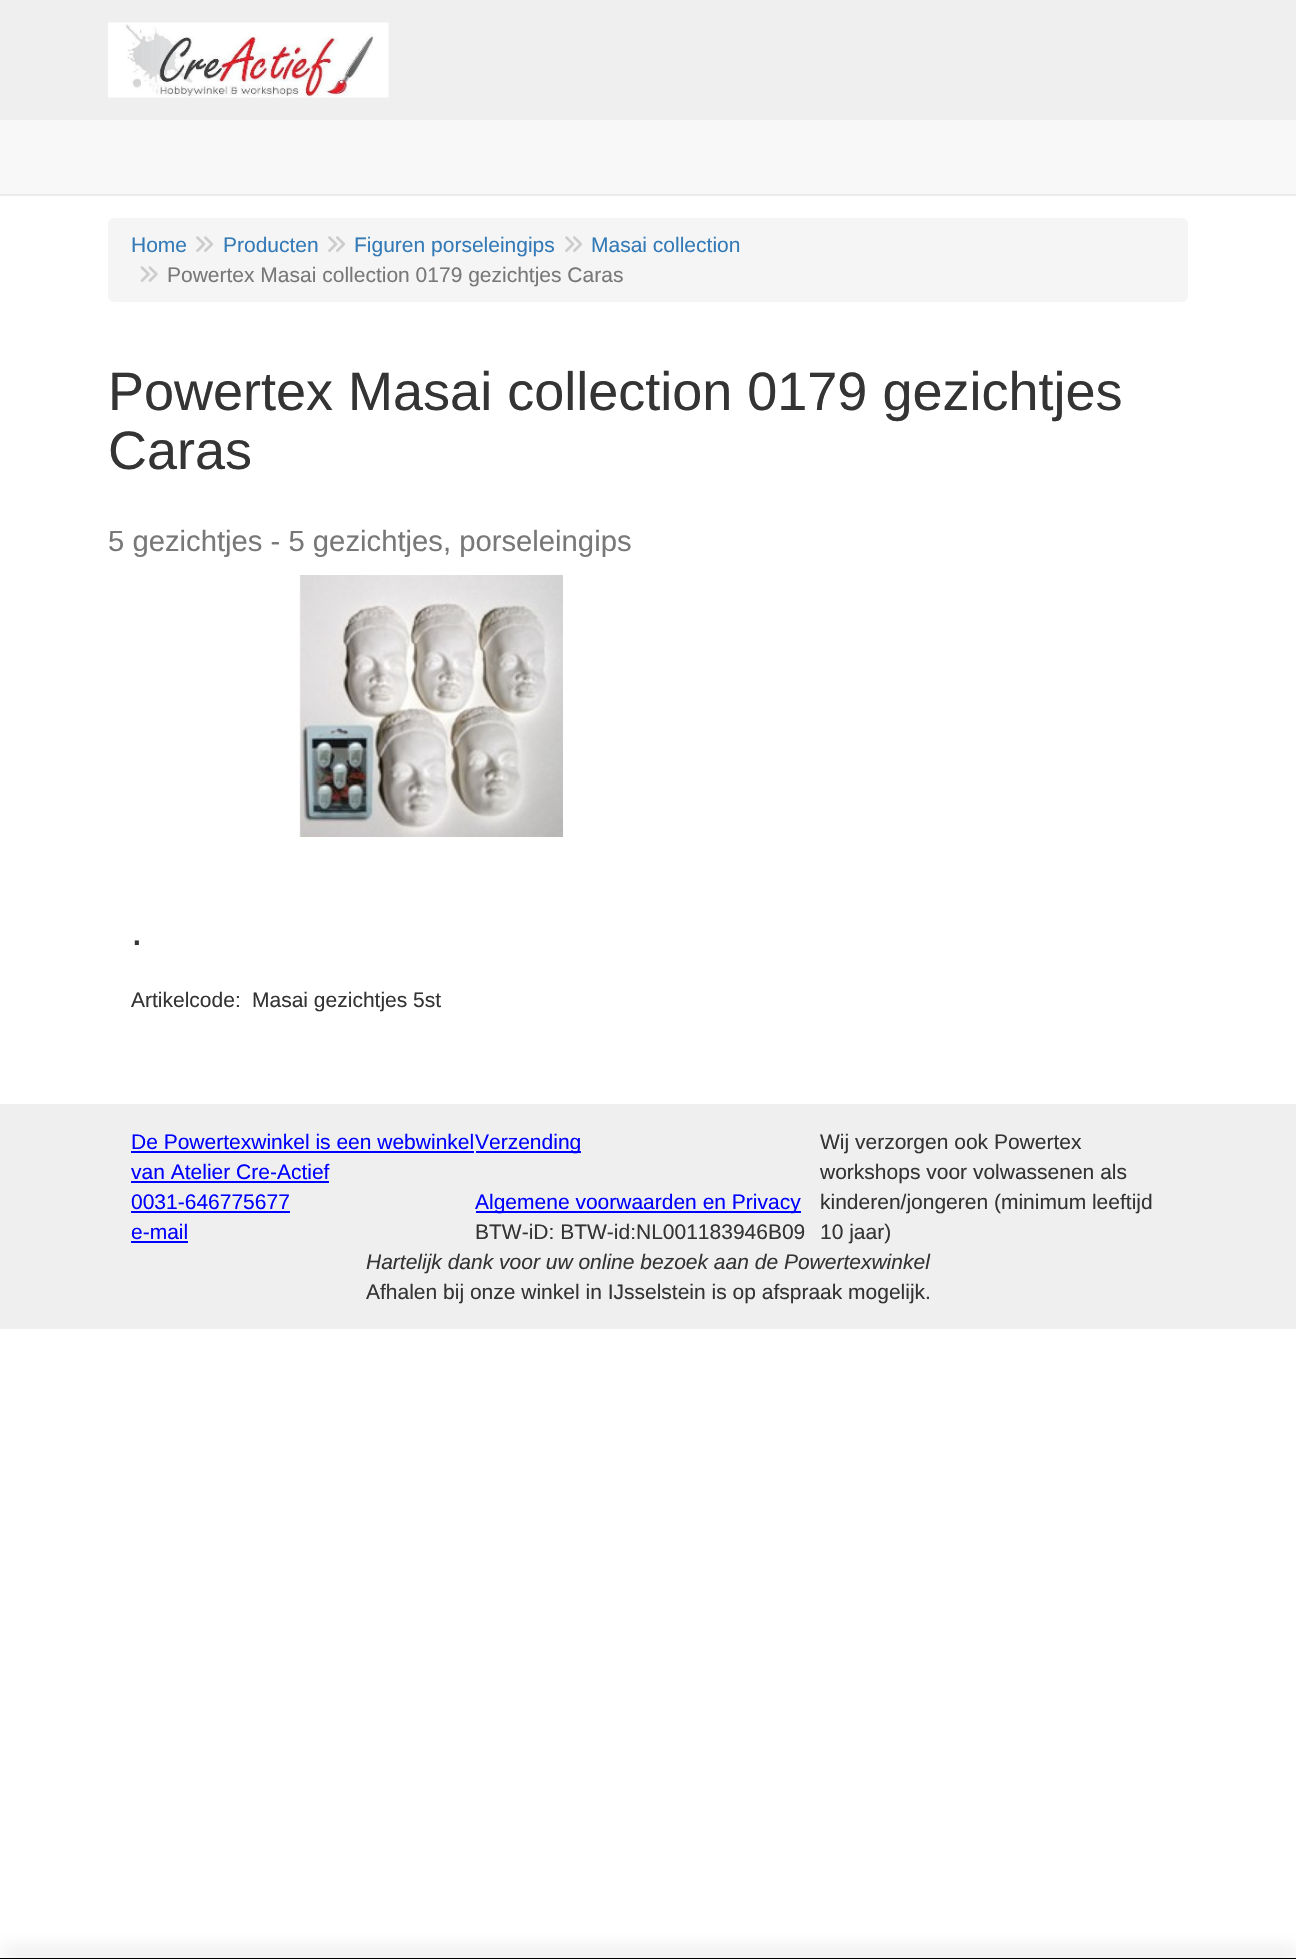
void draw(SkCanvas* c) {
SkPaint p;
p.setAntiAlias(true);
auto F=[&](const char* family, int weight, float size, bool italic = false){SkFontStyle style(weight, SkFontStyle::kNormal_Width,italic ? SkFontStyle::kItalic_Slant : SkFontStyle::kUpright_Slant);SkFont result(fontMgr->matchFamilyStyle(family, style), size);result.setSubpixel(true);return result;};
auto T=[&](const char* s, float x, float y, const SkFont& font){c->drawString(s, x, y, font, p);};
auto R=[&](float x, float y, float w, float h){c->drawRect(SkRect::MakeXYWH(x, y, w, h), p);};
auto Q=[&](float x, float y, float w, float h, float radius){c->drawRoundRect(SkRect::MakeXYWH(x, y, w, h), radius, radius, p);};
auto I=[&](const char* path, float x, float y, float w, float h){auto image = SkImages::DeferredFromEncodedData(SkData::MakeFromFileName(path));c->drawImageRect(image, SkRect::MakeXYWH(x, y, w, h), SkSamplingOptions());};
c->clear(0xffffffff);
p.setColor(0xffefefef);
R(0,0,1296,120);
I("1.png",108,22,281,76);
p.setColor(0xfff8f8f8);
R(0,120,1296,74);
p.setColor(0xffebebeb);
R(0,194,1296,2);
p.setColor(0xfff5f5f5);
Q(108,218,1080,84,6);
auto f1 = F("Liberation Sans",400,21);
p.setColor(0xff337ab7);
T("Home",131,252,f1);
I("2.png",196,236,18,16);
T("Producten",223,252,f1);
I("2.png",328,236,18,16);
T("Figuren porseleingips",354,252,f1);
I("2.png",565,236,18,16);
T("Masai collection",591,252,f1);
I("3.png",140,266,18,16);
p.setColor(0xff787878);
T("Powertex Masai collection 0179 gezichtjes Caras",167,282,f1);
auto f2 = F("Liberation Sans",400,54);
p.setColor(0xff343434);
T("Powertex Masai collection 0179 gezichtjes",108,410,f2);
T("Caras",108,469,f2);
auto f3 = F("Liberation Sans",400,29.25);
p.setColor(0xff787878);
T("5 gezichtjes - 5 gezichtjes, porseleingips",108,551,f3);
I("4.png",299,575,264,262);
auto f4 = F("Liberation Sans",400,42);
p.setColor(0xff343434);
T(".",131,945,f4);
T("Artikelcode:",131,1007,f1);
T("Masai gezichtjes 5st",252,1007,f1);
p.setColor(0xffefefef);
R(0,1104,1296,225);
p.setColor(0xff0000ff);
T("De Powertexwinkel is een webwinkel",131,1149,f1);
R(131,1151,343,2);
T("van Atelier Cre-Actief",131,1179,f1);
R(131,1181,198,2);
T("0031-646775677",131,1209,f1);
R(131,1211,159,2);
T("e-mail",131,1239,f1);
R(131,1241,57,2);
R(476,1151,105,2);
T("Verzending",475,1149,f1);
R(476,1211,325,2);
T("Algemene voorwaarden en Privacy",475,1209,f1);
p.setColor(0xff343434);
T("BTW-iD: BTW-id:NL001183946B09",475,1239,f1);
T("Wij verzorgen ook Powertex",820,1149,f1);
T("workshops voor volwassenen als",820,1179,f1);
T("kinderen/jongeren (minimum leeftijd",820,1209,f1);
T("10 jaar)",820,1239,f1);
auto f5 = F("Liberation Sans",400,21,true);
T("Hartelijk dank voor uw online bezoek aan de Powertexwinkel",366,1269,f5);
T("Afhalen bij onze winkel in IJsselstein is op afspraak mogelijk.",366,1299,f1);
p.setColor(0xff808080);
p.setMaskFilter(SkMaskFilter::MakeBlur(kNormal_SkBlurStyle, 9));
c->drawRect(SkRect::MakeXYWH(2,1953,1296,2),p);
p.setMaskFilter(nullptr);
p.setColor(0xff000000);
R(0,1958,1296,1);
}
